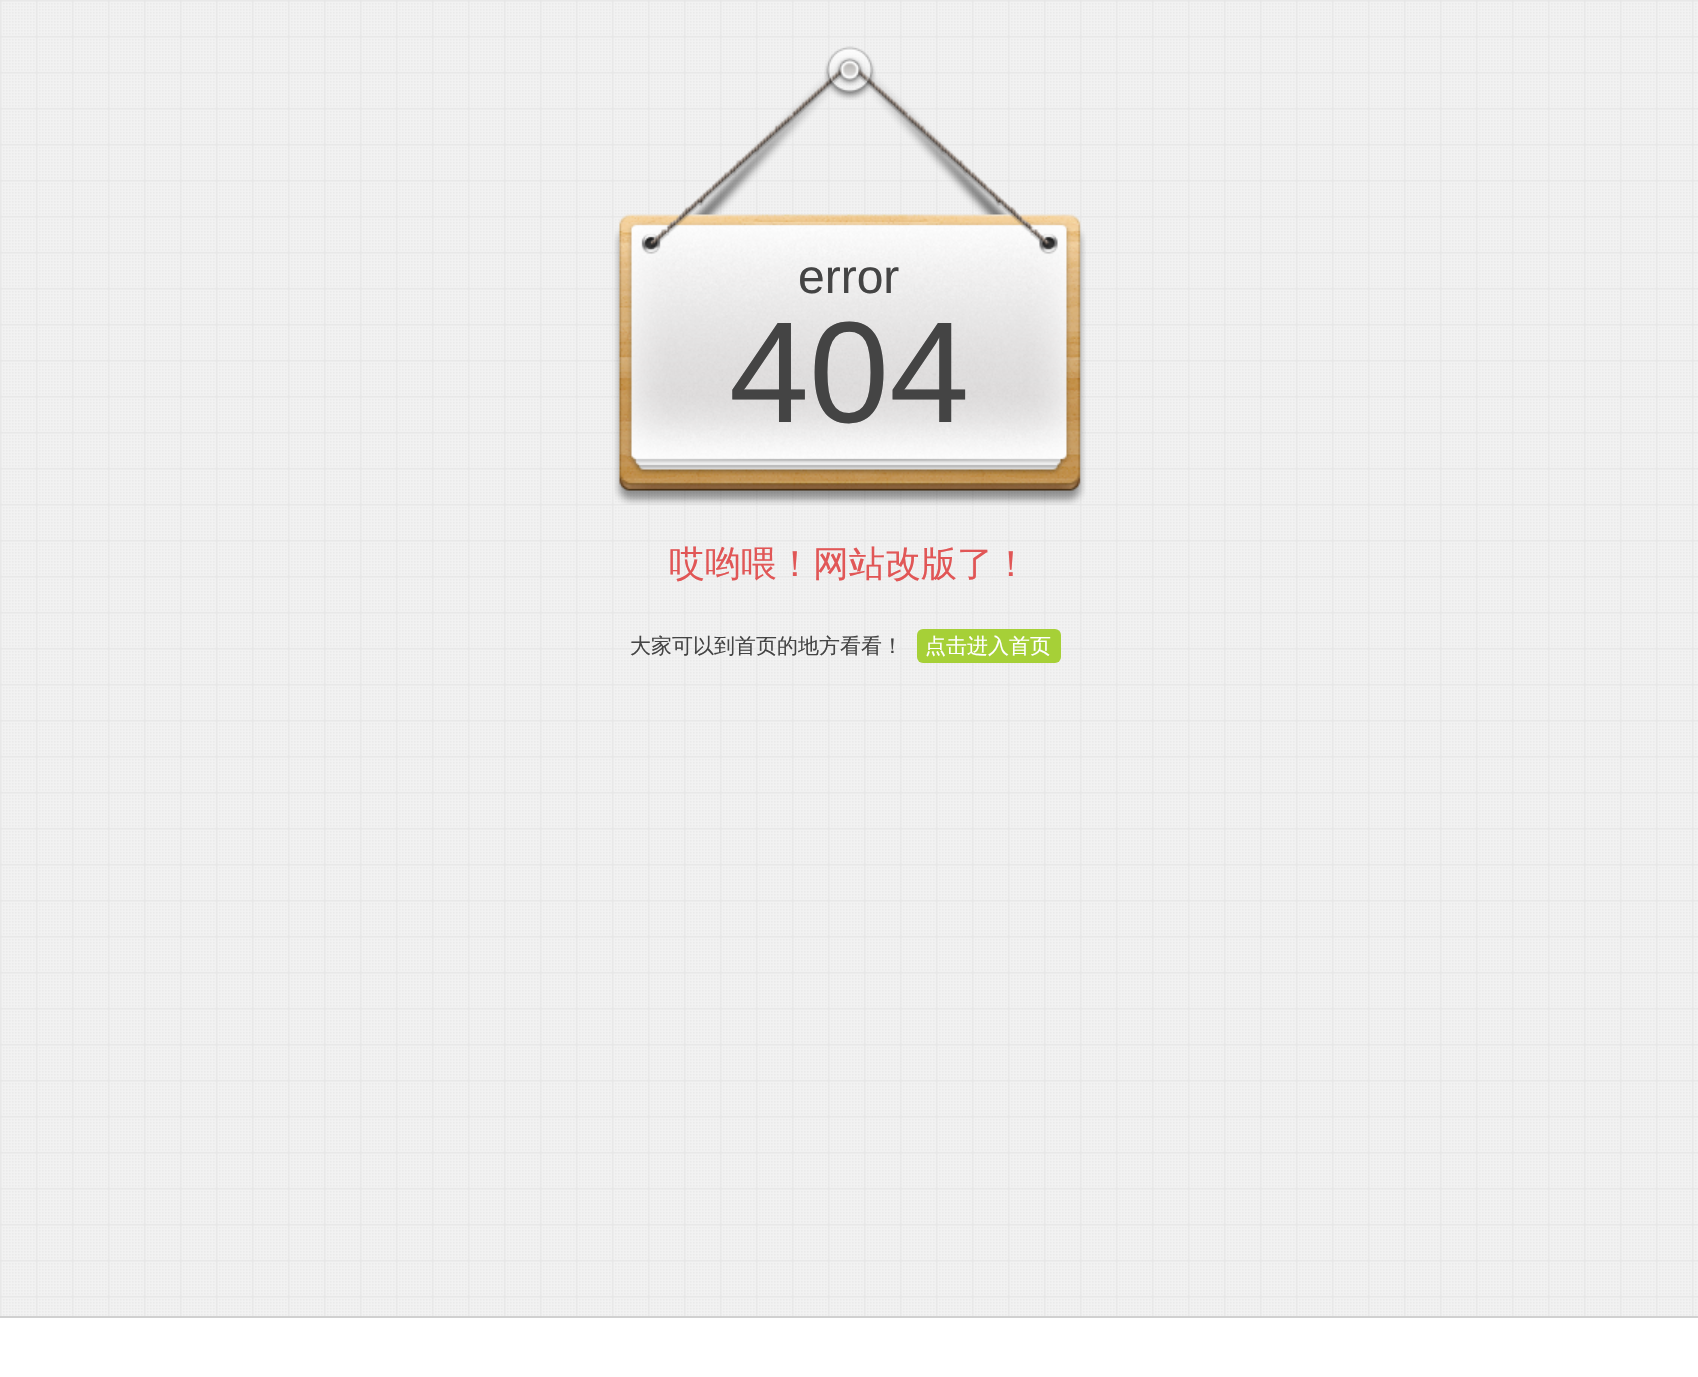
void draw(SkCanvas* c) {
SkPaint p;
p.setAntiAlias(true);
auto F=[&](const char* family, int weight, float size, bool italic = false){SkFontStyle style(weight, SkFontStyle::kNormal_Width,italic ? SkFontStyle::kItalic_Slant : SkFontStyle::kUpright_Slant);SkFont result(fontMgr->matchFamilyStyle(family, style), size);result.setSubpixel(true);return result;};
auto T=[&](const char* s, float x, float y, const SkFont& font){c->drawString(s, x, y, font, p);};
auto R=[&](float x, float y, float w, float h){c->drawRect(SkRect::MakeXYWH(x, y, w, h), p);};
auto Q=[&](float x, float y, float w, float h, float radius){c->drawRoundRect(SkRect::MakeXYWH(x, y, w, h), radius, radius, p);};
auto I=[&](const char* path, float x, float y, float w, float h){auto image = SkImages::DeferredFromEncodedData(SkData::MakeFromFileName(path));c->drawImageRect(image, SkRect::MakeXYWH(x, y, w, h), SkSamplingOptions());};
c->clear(0xfff2f2f2);
I("1.png",0,0,1698,1316);
I("3.png",614,67,472,438);
I("2.png",824,46,52,54);
auto f1 = F("Liberation Sans",400,48);
p.setColor(0xff444444);
T("error",798,293,f1);
auto f2 = F("Liberation Sans",400,144);
T("404",729,422,f2);
auto f3 = F("WenQuanYi Zen Hei",500,36);
p.setColor(0xffe15656);
T("哎哟喂！网站改版了！",669,576,f3);
auto f4 = F("WenQuanYi Zen Hei",500,21);
p.setColor(0xff444444);
T("大家可以到首页的地方看看！",630,653,f4);
p.setColor(0xffa6d037);
Q(917,629,144,34,6);
p.setColor(0xffffffff);
T("点击进入首页",925,653,f4);
R(0,1318,1698,59);
p.setColor(0xffd0d0d0);
R(0,1316,1698,2);
}
